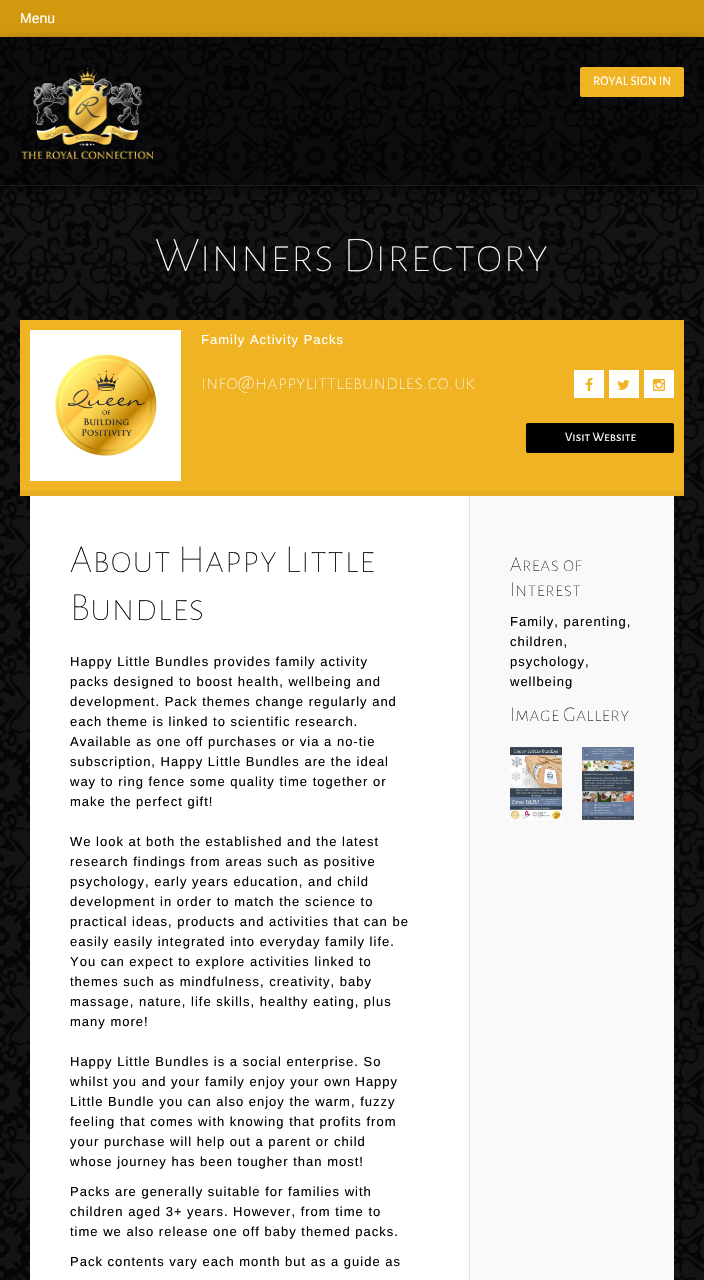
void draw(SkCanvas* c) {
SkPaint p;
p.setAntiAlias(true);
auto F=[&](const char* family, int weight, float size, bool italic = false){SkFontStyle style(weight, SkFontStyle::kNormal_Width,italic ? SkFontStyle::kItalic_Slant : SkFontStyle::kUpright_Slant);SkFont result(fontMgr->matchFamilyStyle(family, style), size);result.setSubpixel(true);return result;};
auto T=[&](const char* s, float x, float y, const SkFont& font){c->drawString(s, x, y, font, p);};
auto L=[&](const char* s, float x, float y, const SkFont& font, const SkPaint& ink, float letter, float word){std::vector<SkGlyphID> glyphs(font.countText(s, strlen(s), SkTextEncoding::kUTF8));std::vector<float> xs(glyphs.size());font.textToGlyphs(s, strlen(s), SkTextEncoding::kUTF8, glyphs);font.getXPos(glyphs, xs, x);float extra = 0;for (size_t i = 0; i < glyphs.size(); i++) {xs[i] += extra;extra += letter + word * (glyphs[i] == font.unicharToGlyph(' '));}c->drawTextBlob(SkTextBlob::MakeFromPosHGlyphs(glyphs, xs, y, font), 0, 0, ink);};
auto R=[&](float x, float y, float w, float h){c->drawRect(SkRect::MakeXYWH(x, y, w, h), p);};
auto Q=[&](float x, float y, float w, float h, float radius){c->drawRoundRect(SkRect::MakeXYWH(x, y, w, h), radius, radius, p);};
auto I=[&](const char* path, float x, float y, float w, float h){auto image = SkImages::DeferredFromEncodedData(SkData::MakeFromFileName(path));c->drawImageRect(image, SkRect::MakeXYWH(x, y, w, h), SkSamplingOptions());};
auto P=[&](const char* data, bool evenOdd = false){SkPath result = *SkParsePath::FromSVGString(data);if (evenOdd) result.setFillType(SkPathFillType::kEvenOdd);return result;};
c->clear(0xffffffff);
I("1.png",0,37,704,1243);
p.setColor(0xffd2980e);
R(0,0,704,37);
c->save();
c->clipPath(P("M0 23h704v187h-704zm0 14h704v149h-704z",true),true);
p.setColor(0xff000000);
p.setMaskFilter(SkMaskFilter::MakeBlur(kNormal_SkBlurStyle, 7.5));
c->drawRect(SkRect::MakeXYWH(5,47,694,139),p);
p.setMaskFilter(nullptr);
c->restore();
auto f1 = F("Liberation Sans",400,14);
p.setColor(0xffffffff);
T("Menu",20,23,f1);
p.setColor(0x66000000);
R(0,37,704,148);
p.setColor(0xff201b1d);
R(0,185,704,1);
I("2.png",21,67,133,93);
p.setColor(0xfff0b323);
Q(580,67,104,30,2);
auto f2 = F("Alegreya Sans SC",400,13);
p.setColor(0xffffffff);
T("ROYAL SIGN IN",593,85,f2);
auto f3 = F("Alegreya Sans SC",200,50);
T("Winners Directory",155,271,f3);
p.setColor(0xfff0b323);
R(20,320,664,171);
p.setColor(0xffe6ac22);
R(20,491,664,5);
p.setColor(0xffffffff);
R(30,330,151,151);
I("3.png",55,354,102,102);
auto f4 = F("Liberation Sans",400,13);
L("Family Activity Packs",201,344,f4,p,1,0);
auto f5 = F("Alegreya Sans SC",200,21.1);
T("info@happylittlebundles.co.uk",201,389,f5);
R(574,370,30,28);
I("4.png",585,378,8,13);
R(609,370,30,28);
I("5.png",617,380,13,10);
R(644,370,30,28);
I("6.png",653,379,12,12);
p.setColor(0xff000000);
Q(526,423,148,30,2);
p.setColor(0xffffffff);
T("Visit Website",565,441,f2);
R(30,496,439,784);
auto f6 = F("Alegreya Sans SC",200,40);
p.setColor(0xff000000);
T("About Happy Little",70,572,f6);
T("Bundles",70,620,f6);
L("Happy Little Bundles provides family activity",70,666,f4,p,1,0);
L("packs designed to boost health, wellbeing and",70,686,f4,p,1,0);
L("development. Pack themes change regularly and",70,706,f4,p,1,0);
L("each theme is linked to scientific research.",70,726,f4,p,1,0);
L("Available as one off purchases or via a no-tie",70,746,f4,p,1,0);
L("subscription, Happy Little Bundles are the ideal",70,766,f4,p,1,0);
L("way to ring fence some quality time together or",70,786,f4,p,1,0);
L("make the perfect gift!",70,806,f4,p,1,0);
L("We look at both the established and the latest",70,846,f4,p,1,0);
L("research findings from areas such as positive",70,866,f4,p,1,0);
L("psychology, early years education, and child",70,886,f4,p,1,0);
L("development in order to match the science to",70,906,f4,p,1,0);
L("practical ideas, products and activities that can be",70,926,f4,p,1,0);
L("easily easily integrated into everyday family life.",70,946,f4,p,1,0);
L("You can expect to explore activities linked to",70,966,f4,p,1,0);
L("themes such as mindfulness, creativity, baby",70,986,f4,p,1,0);
L("massage, nature, life skills, healthy eating, plus",70,1006,f4,p,1,0);
L("many more!",70,1026,f4,p,1,0);
L("Happy Little Bundles is a social enterprise. So",70,1066,f4,p,1,0);
L("whilst you and your family enjoy your own Happy",70,1086,f4,p,1,0);
L("Little Bundle you can also enjoy the warm, fuzzy",70,1106,f4,p,1,0);
L("feeling that comes with knowing that profits from",70,1126,f4,p,1,0);
L("your purchase will help out a parent or child",70,1146,f4,p,1,0);
L("whose journey has been tougher than most!",70,1166,f4,p,1,0);
L("Packs are generally suitable for families with",70,1196,f4,p,1,0);
L("children aged 3+ years. However, from time to",70,1216,f4,p,1,0);
L("time we also release one off baby themed packs.",70,1236,f4,p,1,0);
L("Pack contents vary each month but as a guide as",70,1266,f4,p,1,0);
p.setColor(0xfff9f9f9);
R(470,496,204,784);
p.setColor(0xffe0e0e0);
R(469,496,1,784);
auto f7 = F("Alegreya Sans SC",200,21);
p.setColor(0xff000000);
T("Areas of",510,571,f7);
T("Interest",510,596,f7);
L("Family, parenting,",510,626,f4,p,1,0);
L("children,",510,646,f4,p,1,0);
L("psychology,",510,666,f4,p,1,0);
L("wellbeing",510,686,f4,p,1,0);
T("Image Gallery",510,721,f7);
I("7.png",510,747,52,73);
I("8.png",582,747,52,73);
}
